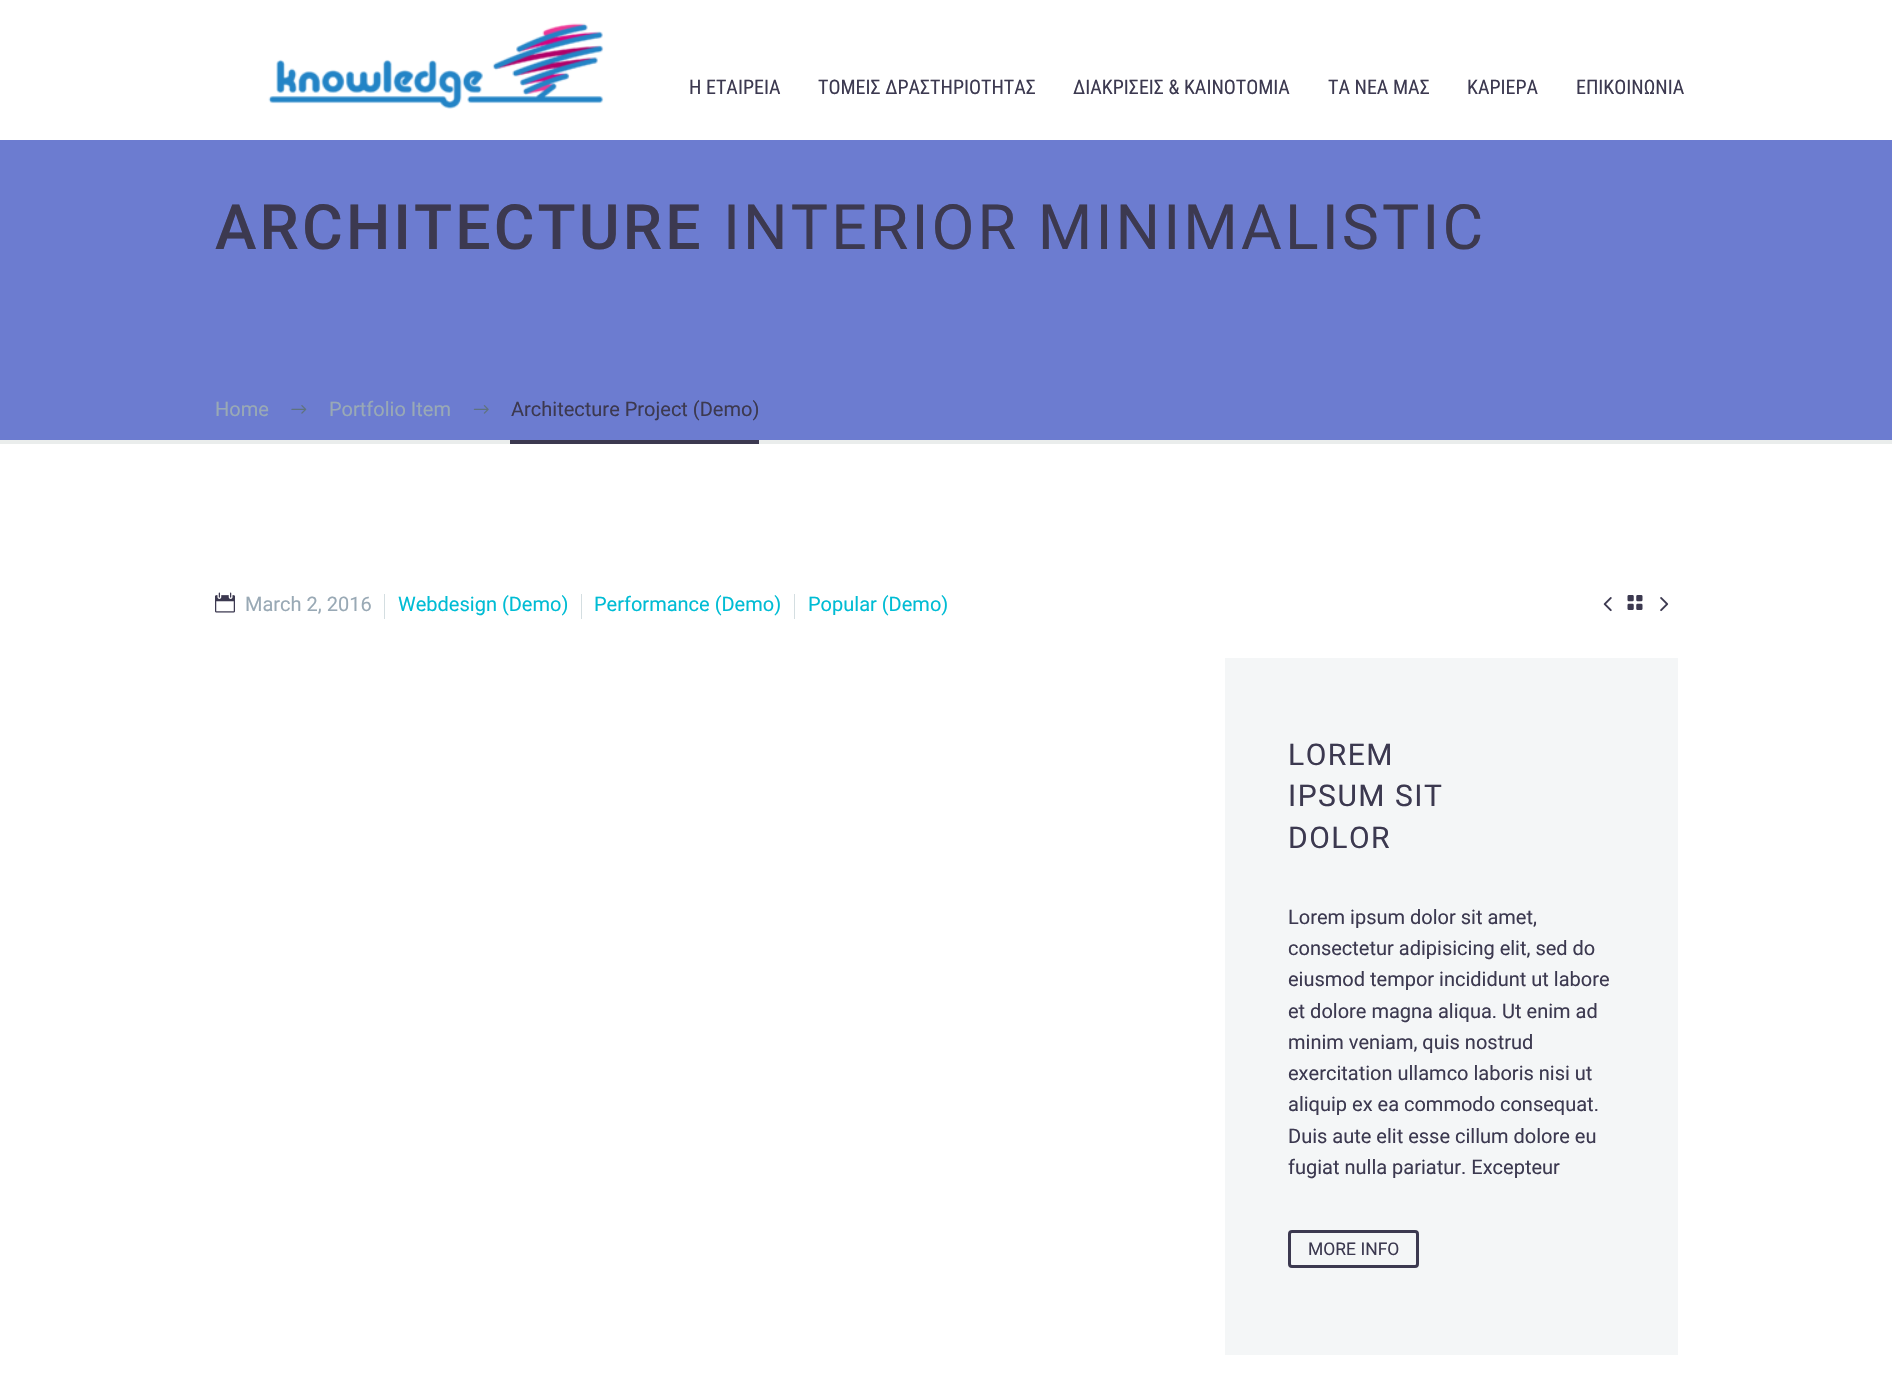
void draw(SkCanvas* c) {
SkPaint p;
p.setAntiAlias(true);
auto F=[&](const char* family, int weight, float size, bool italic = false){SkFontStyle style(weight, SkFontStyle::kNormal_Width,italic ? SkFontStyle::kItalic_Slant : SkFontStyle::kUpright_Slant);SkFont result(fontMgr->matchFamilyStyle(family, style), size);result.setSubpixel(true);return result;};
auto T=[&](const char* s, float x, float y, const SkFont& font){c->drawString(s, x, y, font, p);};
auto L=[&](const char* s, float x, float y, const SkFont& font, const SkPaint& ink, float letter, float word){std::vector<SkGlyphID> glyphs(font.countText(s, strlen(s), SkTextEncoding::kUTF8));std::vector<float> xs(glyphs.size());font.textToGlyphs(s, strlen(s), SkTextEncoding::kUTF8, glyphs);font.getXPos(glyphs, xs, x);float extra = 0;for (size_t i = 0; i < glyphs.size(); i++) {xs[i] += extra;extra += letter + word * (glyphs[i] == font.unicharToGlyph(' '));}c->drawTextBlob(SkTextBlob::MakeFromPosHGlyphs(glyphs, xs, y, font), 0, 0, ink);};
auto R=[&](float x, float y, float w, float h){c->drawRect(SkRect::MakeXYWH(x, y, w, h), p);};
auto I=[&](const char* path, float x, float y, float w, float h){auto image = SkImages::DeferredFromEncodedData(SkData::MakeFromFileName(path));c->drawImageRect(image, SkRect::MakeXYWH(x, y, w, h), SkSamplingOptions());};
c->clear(0xffffffff);
I("1.png",268,23,336,86);
auto f1 = F("Roboto Condensed",400,20);
p.setColor(0xff3c3950);
T("Η ΕΤΑΙΡΕΙΑ",689,94,f1);
T("ΤΟΜΕΙΣ ΔΡΑΣΤΗΡΙΟΤΗΤΑΣ",818,94,f1);
T("ΔΙΑΚΡΙΣΕΙΣ & ΚΑΙΝΟΤΟΜΙΑ",1073,94,f1);
T("ΤΑ ΝΕΑ ΜΑΣ",1328,94,f1);
T("ΚΑΡΙΕΡΑ",1467,94,f1);
T("ΕΠΙΚΟΙΝΩΝΙΑ",1576,94,f1);
p.setColor(0xff6c7cd0);
R(0,140,1892,300);
p.setColor(0xffeaedec);
R(0,440,1892,4);
auto f2 = F("Roboto",500,62.5);
p.setColor(0xff3c3950);
L("ARCHITECTURE",215,249,f2,p,3.1,0);
auto f3 = F("Roboto",400,62.5);
L("INTERIOR MINIMALISTIC",723,249,f3,p,3.1,0);
auto f4 = F("Roboto",400,20);
p.setColor(0xff99a9b5);
T("Home",215,416,f4);
I("2.png",291,405,16,9);
T("Portfolio Item",329,416,f4);
I("3.png",473,405,16,9);
p.setColor(0xff3c3950);
R(510,440,249,4);
T("Architecture Project (Demo)",511,416,f4);
I("4.png",215,592,20,21);
p.setColor(0xff99a9b5);
T("March 2, 2016",245,611,f4);
p.setColor(0xffd4dee1);
R(384,594,1,25);
p.setColor(0xff00bcd4);
T("Webdesign (Demo)",398,611,f4);
p.setColor(0xffd4dee1);
R(581,594,1,25);
p.setColor(0xff00bcd4);
T("Performance (Demo)",594,611,f4);
p.setColor(0xffd4dee1);
R(794,594,1,25);
p.setColor(0xff00bcd4);
T("Popular (Demo)",808,611,f4);
I("5.png",1603,597,9,15);
I("6.png",1627,595,16,15);
I("7.png",1660,597,9,15);
p.setColor(0xfff4f6f7);
R(1225,658,453,697);
auto f5 = F("Roboto",400,30);
p.setColor(0xff3c3950);
L("LOREM",1288,765,f5,p,1.5,0);
L("IPSUM SIT",1288,806,f5,p,1.5,0);
L("DOLOR",1288,848,f5,p,1.5,0);
T("Lorem ipsum dolor sit amet,",1288,924,f4);
T("consectetur adipisicing elit, sed do",1288,955,f4);
T("eiusmod tempor incididunt ut labore",1288,986,f4);
T("et dolore magna aliqua. Ut enim ad",1288,1018,f4);
T("minim veniam, quis nostrud",1288,1049,f4);
T("exercitation ullamco laboris nisi ut",1288,1080,f4);
T("aliquip ex ea commodo consequat.",1288,1111,f4);
T("Duis aute elit esse cillum dolore eu",1288,1143,f4);
T("fugiat nulla pariatur. Excepteur",1288,1174,f4);
p.setStroke(true);
p.setStrokeWidth(3);
c->drawRoundRect(SkRect::MakeXYWH(1289.5,1231.5,128,35),2.5,2.5,p);
auto f6 = F("Roboto",400,17.5);
p.setStroke(false);
T("MORE INFO",1308,1255,f6);
}
